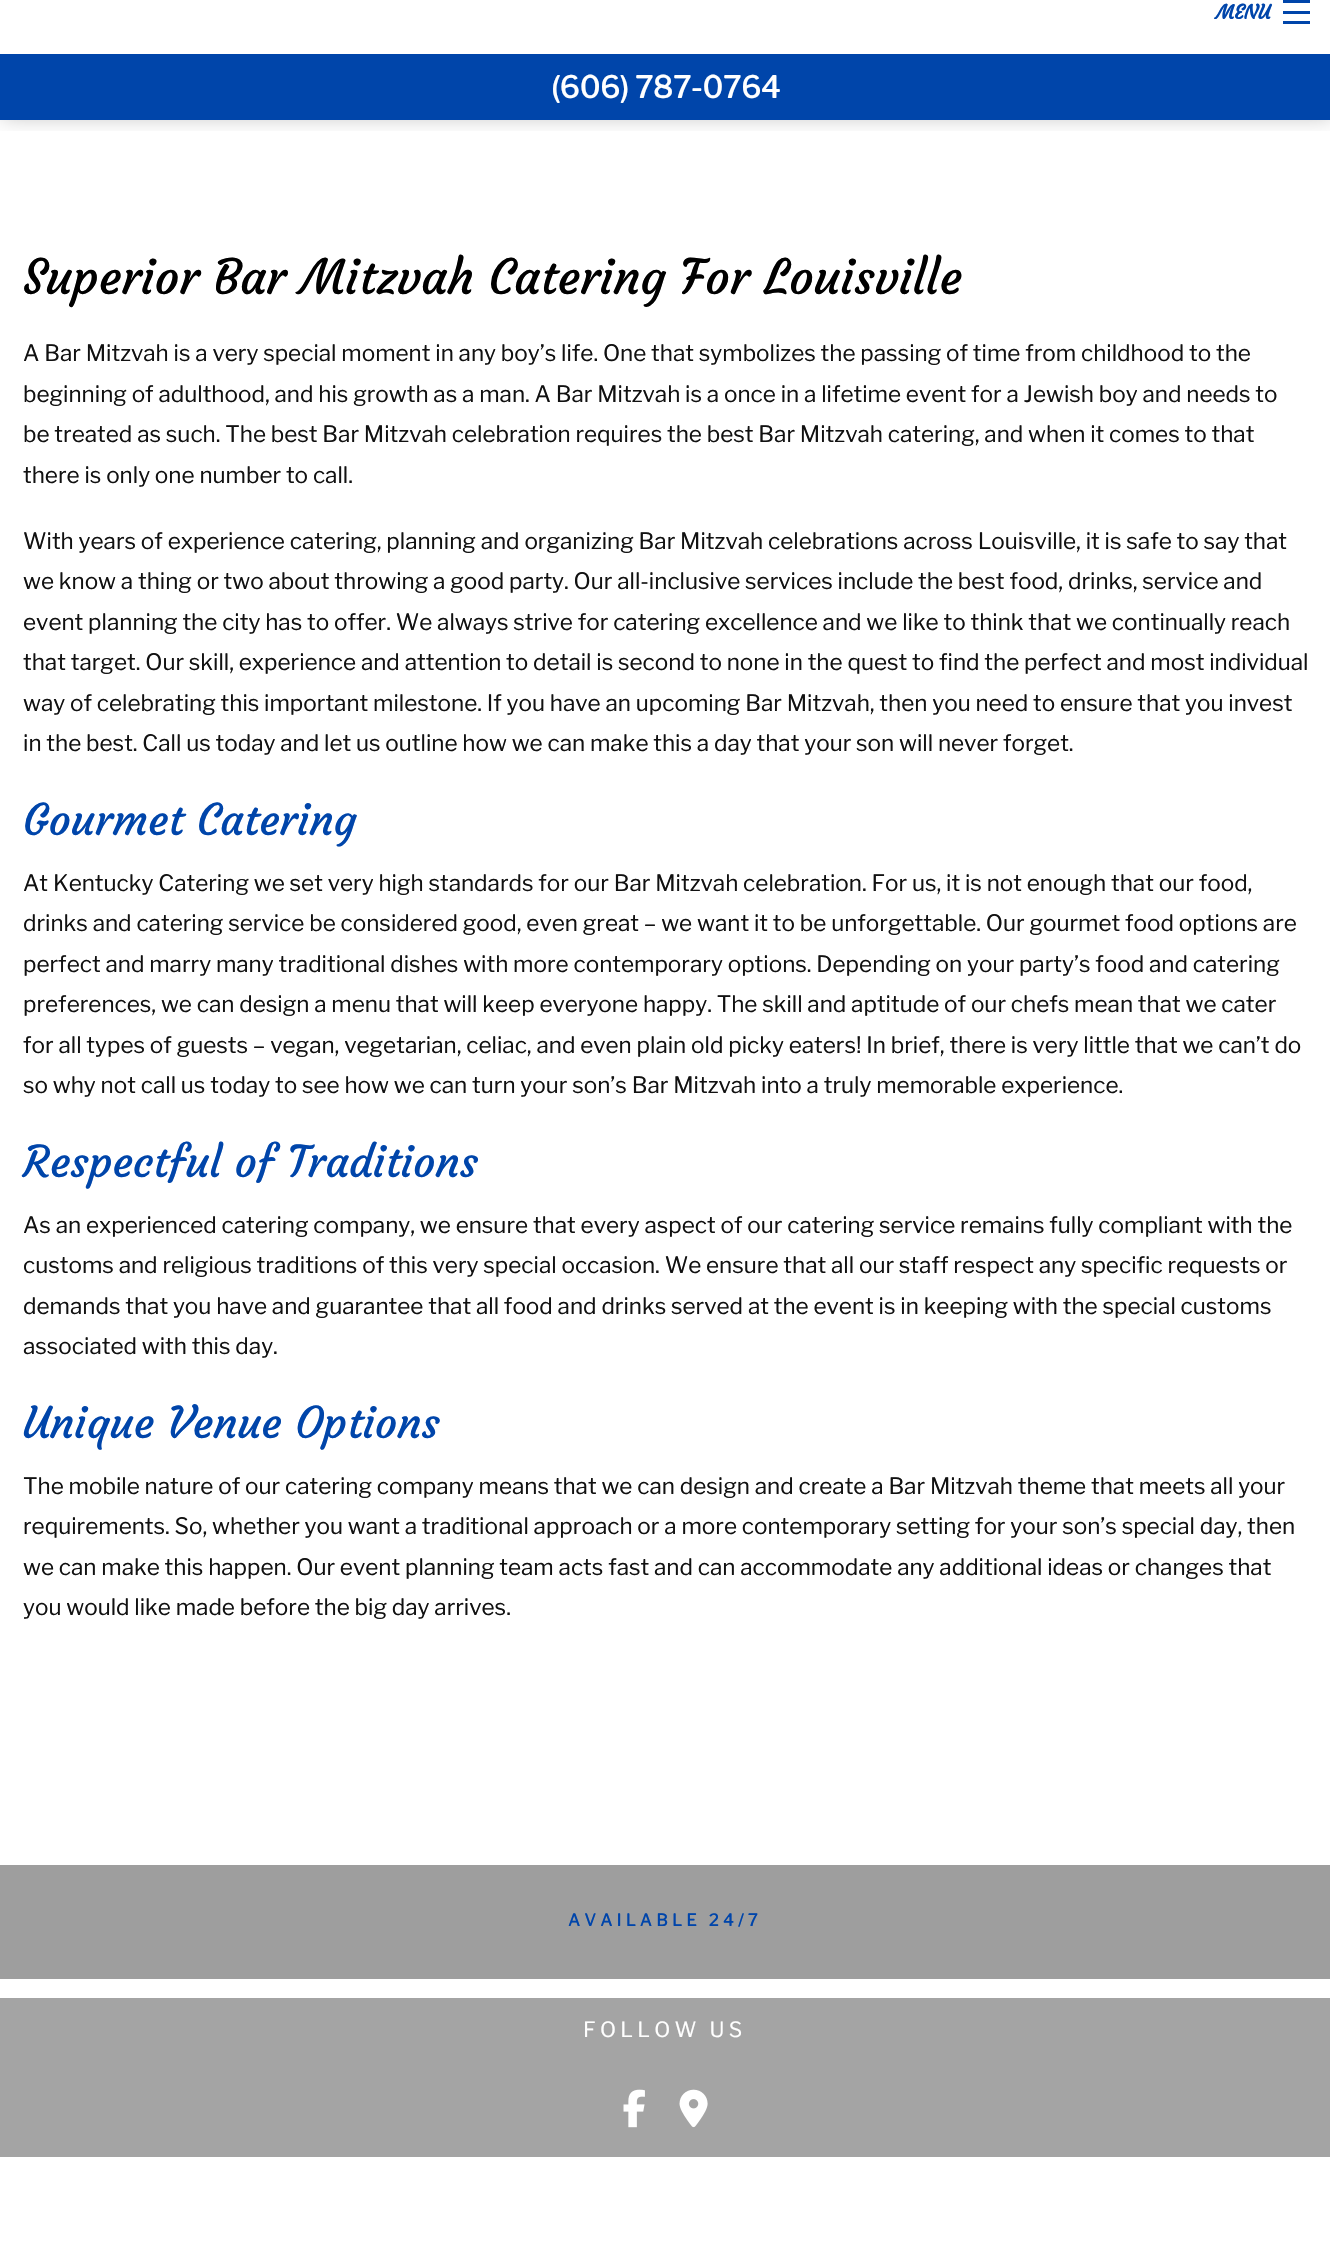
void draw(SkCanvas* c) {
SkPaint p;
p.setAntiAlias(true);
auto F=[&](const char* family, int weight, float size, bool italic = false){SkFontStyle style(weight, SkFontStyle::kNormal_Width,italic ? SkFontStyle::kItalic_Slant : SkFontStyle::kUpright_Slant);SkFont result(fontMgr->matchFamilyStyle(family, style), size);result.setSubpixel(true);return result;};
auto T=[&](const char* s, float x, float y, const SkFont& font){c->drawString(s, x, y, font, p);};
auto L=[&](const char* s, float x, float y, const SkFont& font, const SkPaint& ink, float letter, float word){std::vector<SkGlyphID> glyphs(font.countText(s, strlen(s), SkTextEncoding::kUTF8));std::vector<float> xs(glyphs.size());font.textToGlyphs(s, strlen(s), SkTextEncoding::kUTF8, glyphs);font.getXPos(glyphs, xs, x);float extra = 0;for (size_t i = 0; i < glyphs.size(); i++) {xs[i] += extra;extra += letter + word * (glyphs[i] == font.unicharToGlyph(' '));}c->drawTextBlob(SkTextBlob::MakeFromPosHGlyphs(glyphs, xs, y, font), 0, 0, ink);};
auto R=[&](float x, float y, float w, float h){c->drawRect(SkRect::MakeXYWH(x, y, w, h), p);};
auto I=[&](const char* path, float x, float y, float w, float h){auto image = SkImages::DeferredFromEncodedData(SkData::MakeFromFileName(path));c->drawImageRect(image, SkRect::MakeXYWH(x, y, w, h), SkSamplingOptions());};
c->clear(0xffffffff);
c->save();
c->clipRect(SkRect::MakeXYWH(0,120,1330,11));
p.setColor(0x40000000);
p.setMaskFilter(SkMaskFilter::MakeBlur(kNormal_SkBlurStyle, 10));
c->drawRect(SkRect::MakeXYWH(2,-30,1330,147),p);
p.setMaskFilter(nullptr);
c->restore();
auto f1 = F("Courgette",700,19.5);
p.setColor(0xff0045aa);
T("MENU",1216,19,f1);
R(1283,21,27,3);
R(1283,11,27,3);
R(1283,0,27,3);
R(0,54,1330,66);
auto f2 = F("Libre Franklin",700,30);
p.setColor(0xffffffff);
T("(606) 787-0764",551,98,f2);
auto f3 = F("Courgette",400,48);
p.setColor(0xff000000);
T("Superior Bar Mitzvah Catering For Louisville",23,294,f3);
auto f4 = F("Libre Franklin",100,22.5);
p.setColor(0xff111111);
T("A Bar Mitzvah is a very special moment in any boy’s life. One that symbolizes the passing of time from childhood to the",23,361,f4);
T("beginning of adulthood, and his growth as a man. A Bar Mitzvah is a once in a lifetime event for a Jewish boy and needs to",23,402,f4);
T("be treated as such. The best Bar Mitzvah celebration requires the best Bar Mitzvah catering, and when it comes to that",23,442,f4);
T("there is only one number to call.",23,483,f4);
T("With years of experience catering, planning and organizing Bar Mitzvah celebrations across Louisville, it is safe to say that",23,549,f4);
T("we know a thing or two about throwing a good party. Our all-inclusive services include the best food, drinks, service and",23,589,f4);
T("event planning the city has to offer. We always strive for catering excellence and we like to think that we continually reach",23,630,f4);
T("that target. Our skill, experience and attention to detail is second to none in the quest to find the perfect and most individual",23,670,f4);
T("way of celebrating this important milestone. If you have an upcoming Bar Mitzvah, then you need to ensure that you invest",23,711,f4);
T("in the best. Call us today and let us outline how we can make this a day that your son will never forget.",23,751,f4);
auto f5 = F("Courgette",400,43.25);
p.setColor(0xff0045aa);
T("Gourmet Catering",23,835,f5);
p.setColor(0xff111111);
T("At Kentucky Catering we set very high standards for our Bar Mitzvah celebration. For us, it is not enough that our food,",23,891,f4);
T("drinks and catering service be considered good, even great – we want it to be unforgettable. Our gourmet food options are",23,931,f4);
T("perfect and marry many traditional dishes with more contemporary options. Depending on your party’s food and catering",23,972,f4);
T("preferences, we can design a menu that will keep everyone happy. The skill and aptitude of our chefs mean that we cater",23,1012,f4);
T("for all types of guests – vegan, vegetarian, celiac, and even plain old picky eaters! In brief, there is very little that we can’t do",23,1053,f4);
T("so why not call us today to see how we can turn your son’s Bar Mitzvah into a truly memorable experience.",23,1093,f4);
p.setColor(0xff0045aa);
T("Respectful of Traditions",23,1177,f5);
p.setColor(0xff111111);
T("As an experienced catering company, we ensure that every aspect of our catering service remains fully compliant with the",23,1233,f4);
T("customs and religious traditions of this very special occasion. We ensure that all our staff respect any specific requests or",23,1273,f4);
T("demands that you have and guarantee that all food and drinks served at the event is in keeping with the special customs",23,1314,f4);
T("associated with this day.",23,1354,f4);
p.setColor(0xff0045aa);
T("Unique Venue Options",23,1438,f5);
p.setColor(0xff111111);
T("The mobile nature of our catering company means that we can design and create a Bar Mitzvah theme that meets all your",23,1494,f4);
T("requirements. So, whether you want a traditional approach or a more contemporary setting for your son’s special day, then",23,1534,f4);
T("we can make this happen. Our event planning team acts fast and can accommodate any additional ideas or changes that",23,1575,f4);
T("you would like made before the big day arrives.",23,1615,f4);
p.setColor(0xff9e9e9e);
R(0,1865,1330,114);
auto f6 = F("Libre Franklin",700,16.5);
p.setColor(0xff0045aa);
L("AVAILABLE 24/7",568,1926,f6,p,4.3,0);
p.setColor(0xffa4a4a4);
R(0,1998,1330,159);
auto f7 = F("Libre Franklin",100,21);
p.setColor(0xffffffff);
L("FOLLOW US",583,2037,f7,p,4.3,0);
I("1.png",623,2089,22,39);
I("2.png",679,2089,29,39);
}
